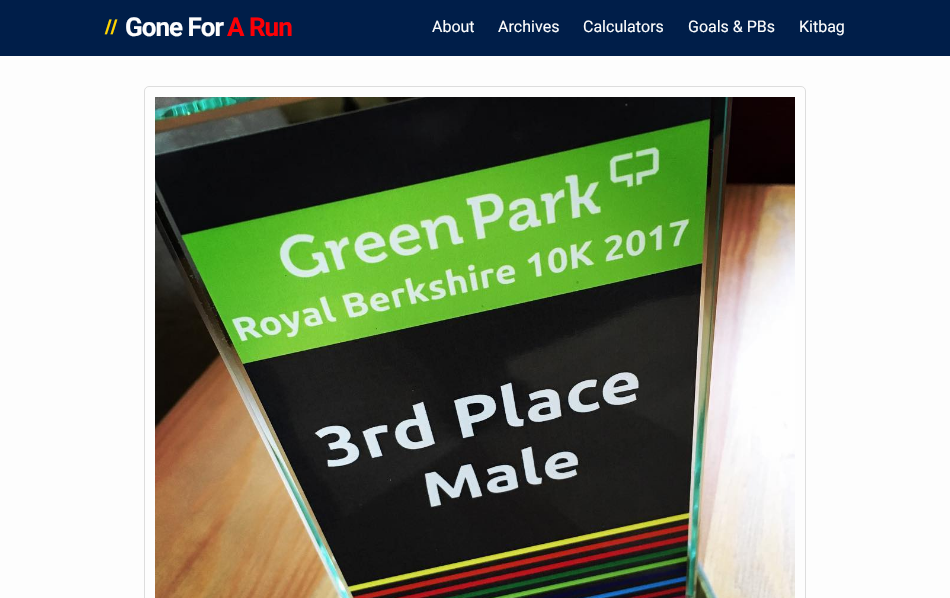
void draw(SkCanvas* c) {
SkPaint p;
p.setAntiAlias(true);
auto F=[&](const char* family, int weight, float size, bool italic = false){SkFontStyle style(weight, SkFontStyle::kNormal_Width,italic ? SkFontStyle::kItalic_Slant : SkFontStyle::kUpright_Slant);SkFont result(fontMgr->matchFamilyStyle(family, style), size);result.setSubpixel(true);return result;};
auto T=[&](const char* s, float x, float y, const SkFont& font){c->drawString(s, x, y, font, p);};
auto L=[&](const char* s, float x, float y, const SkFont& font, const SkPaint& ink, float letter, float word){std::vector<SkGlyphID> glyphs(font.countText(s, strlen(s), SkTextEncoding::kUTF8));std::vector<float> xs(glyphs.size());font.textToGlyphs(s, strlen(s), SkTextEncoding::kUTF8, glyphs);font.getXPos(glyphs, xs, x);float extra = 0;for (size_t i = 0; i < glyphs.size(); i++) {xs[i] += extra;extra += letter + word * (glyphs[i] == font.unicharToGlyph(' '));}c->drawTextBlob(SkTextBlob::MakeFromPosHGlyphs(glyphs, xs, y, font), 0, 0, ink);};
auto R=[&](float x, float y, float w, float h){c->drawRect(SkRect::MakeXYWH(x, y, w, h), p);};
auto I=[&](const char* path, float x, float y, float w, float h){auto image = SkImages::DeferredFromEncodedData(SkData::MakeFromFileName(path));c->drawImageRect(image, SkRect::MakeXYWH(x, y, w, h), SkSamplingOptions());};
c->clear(0xfffdfdfd);
p.setColor(0xff001e49);
R(0,0,950,56);
auto f1 = F("Roboto",900,19);
p.setColor(0xffffd400);
L("//",105,33,f1,p,-1,0);
auto f2 = F("Roboto",700,26);
p.setColor(0xfffdfdfd);
L("Gone For",125,36,f2,p,-1,0);
p.setColor(0xfffb0006);
L("A Run",227,36,f2,p,-1,0);
auto f3 = F("Roboto",400,16);
p.setColor(0xfffdfdfd);
T("About",432,32,f3);
T("Archives",498,32,f3);
T("Calculators",583,32,f3);
T("Goals & PBs",688,32,f3);
T("Kitbag",799,32,f3);
p.setStroke(true);
p.setStrokeWidth(1);
p.setColor(0xffdddddd);
c->drawRoundRect(SkRect::MakeXYWH(144.5,86.5,661,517),4.5,4.5,p);
I("1.png",155,97,640,501);
}
